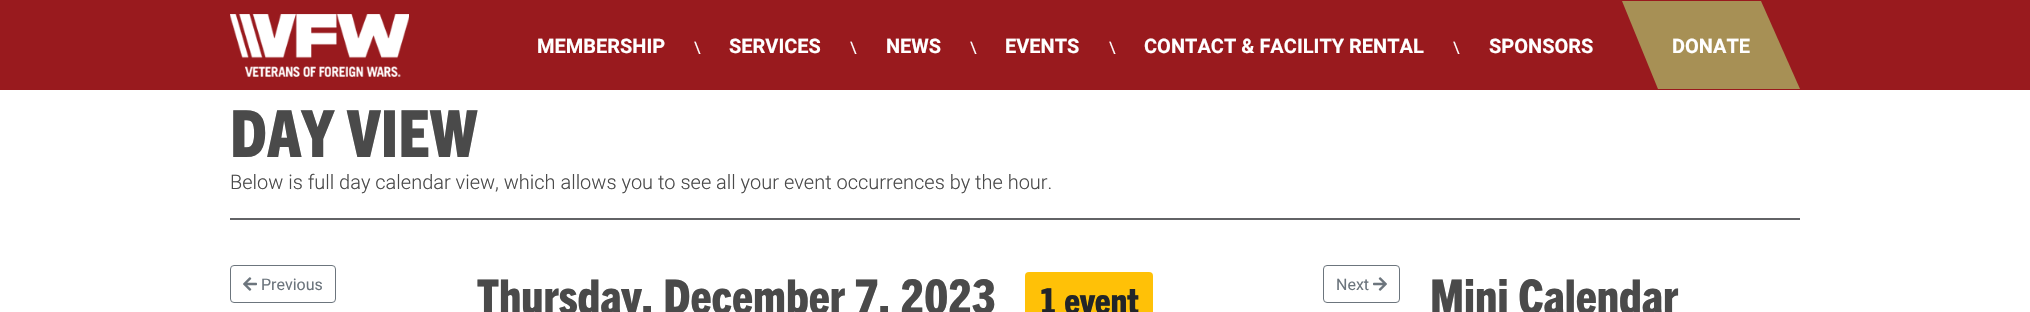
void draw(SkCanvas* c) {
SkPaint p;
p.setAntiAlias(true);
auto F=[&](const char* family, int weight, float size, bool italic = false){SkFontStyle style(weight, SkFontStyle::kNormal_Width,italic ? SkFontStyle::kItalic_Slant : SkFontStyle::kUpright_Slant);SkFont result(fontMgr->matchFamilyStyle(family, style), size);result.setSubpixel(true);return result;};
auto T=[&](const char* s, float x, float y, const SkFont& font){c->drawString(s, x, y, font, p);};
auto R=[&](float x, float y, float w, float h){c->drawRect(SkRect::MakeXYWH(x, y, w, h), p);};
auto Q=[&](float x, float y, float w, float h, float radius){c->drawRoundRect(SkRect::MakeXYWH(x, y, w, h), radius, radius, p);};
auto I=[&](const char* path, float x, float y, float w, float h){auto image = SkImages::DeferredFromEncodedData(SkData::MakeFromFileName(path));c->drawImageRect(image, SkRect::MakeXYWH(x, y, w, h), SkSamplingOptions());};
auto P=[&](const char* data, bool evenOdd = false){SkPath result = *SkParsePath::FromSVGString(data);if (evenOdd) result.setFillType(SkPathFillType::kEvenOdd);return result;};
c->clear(0xffffffff);
p.setColor(0xff991a1e);
R(0,0,2030,90);
I("1.png",230,14,179,63);
auto f1 = F("Roboto",700,20);
p.setColor(0xffffffff);
T("MEMBERSHIP",537,53,f1);
auto f2 = F("Roboto",400,16);
T("\\",694,53,f2);
T("SERVICES",729,53,f1);
T("\\",850,53,f2);
T("NEWS",886,53,f1);
T("\\",970,53,f2);
T("EVENTS",1005,53,f1);
T("\\",1109,53,f2);
T("CONTACT & FACILITY RENTAL",1144,53,f1);
T("\\",1453,53,f2);
T("SPONSORS",1489,53,f1);
p.setColor(0xffa79055);
c->drawPath(P("M1622 1l36 88h142l-39-88z"),p);
p.setColor(0xffffffff);
T("DONATE",1672,53,f1);
auto f3 = F("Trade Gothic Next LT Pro",800,65);
p.setColor(0xff4a4a4a);
T("DAY VIEW",230,157,f3);
auto f4 = F("Roboto",300,20);
T("Below is full day calendar view, which allows you to see all your event occurrences by the hour.",230,189,f4);
p.setColor(0xff626366);
R(230,218,1570,2);
p.setStroke(true);
p.setStrokeWidth(1);
p.setColor(0xff6c757d);
c->drawRoundRect(SkRect::MakeXYWH(230.5,265.5,105,37),3.5,3.5,p);
I("2.png",243,277,14,14);
p.setStroke(false);
T("Previous",261,290,f2);
auto f5 = F("Trade Gothic Next LT Pro",800,48);
p.setColor(0xff4a4a4a);
T("Thursday, December 7, 2023",477,314,f5);
p.setColor(0xffffc107);
Q(1025,272,128,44,4);
auto f6 = F("Trade Gothic Next LT Pro",800,36);
p.setColor(0xff212529);
T("1 event",1039,314,f6);
p.setStroke(true);
p.setColor(0xff6c757d);
c->drawRoundRect(SkRect::MakeXYWH(1323.5,265.5,76,37),3.5,3.5,p);
p.setStroke(false);
T("Next",1336,290,f2);
I("3.png",1373,277,14,14);
p.setColor(0xff4a4a4a);
T("Mini Calendar",1430,314,f5);
}
